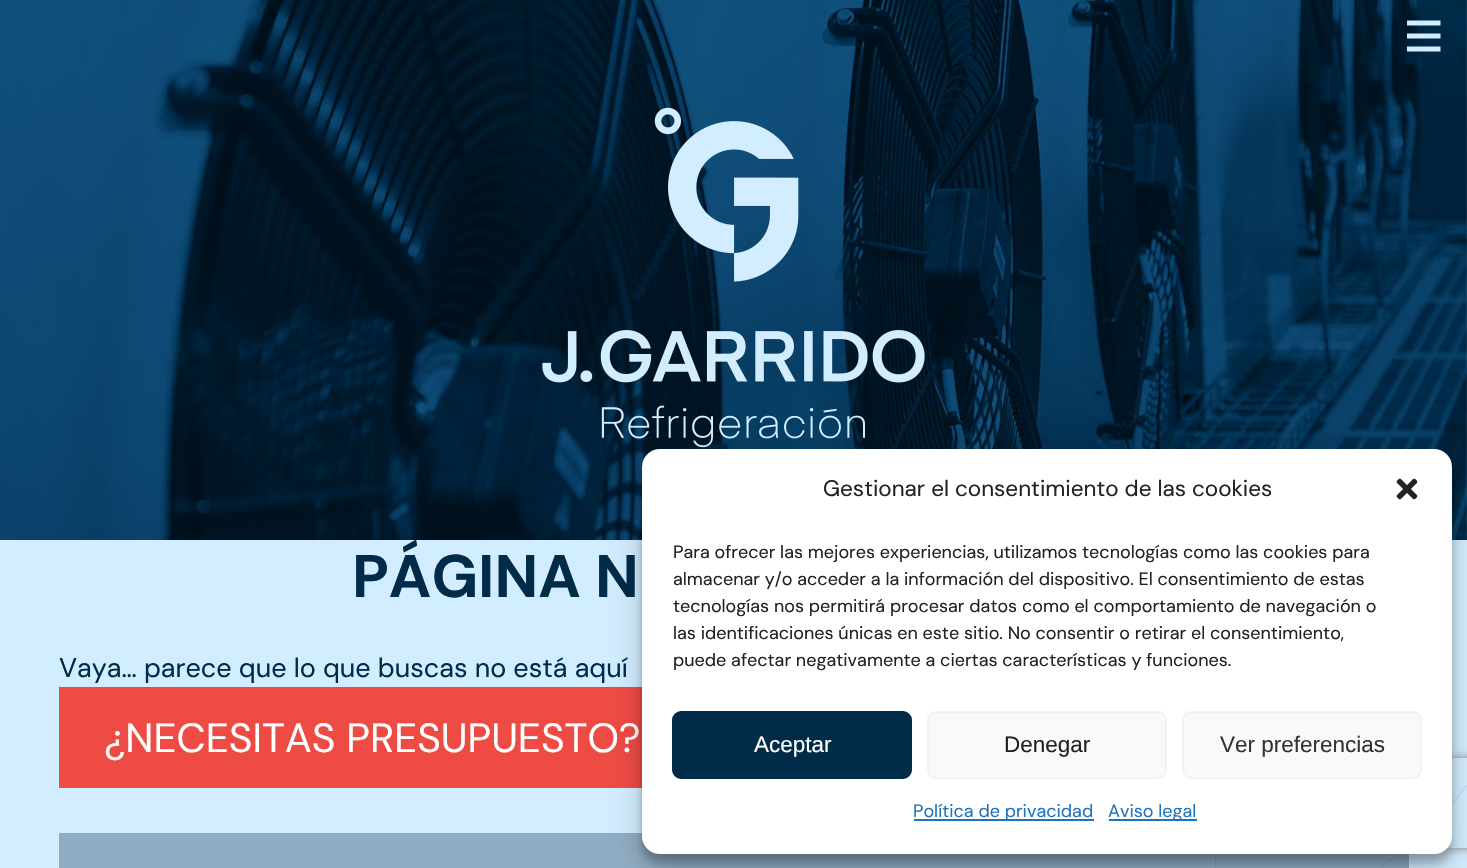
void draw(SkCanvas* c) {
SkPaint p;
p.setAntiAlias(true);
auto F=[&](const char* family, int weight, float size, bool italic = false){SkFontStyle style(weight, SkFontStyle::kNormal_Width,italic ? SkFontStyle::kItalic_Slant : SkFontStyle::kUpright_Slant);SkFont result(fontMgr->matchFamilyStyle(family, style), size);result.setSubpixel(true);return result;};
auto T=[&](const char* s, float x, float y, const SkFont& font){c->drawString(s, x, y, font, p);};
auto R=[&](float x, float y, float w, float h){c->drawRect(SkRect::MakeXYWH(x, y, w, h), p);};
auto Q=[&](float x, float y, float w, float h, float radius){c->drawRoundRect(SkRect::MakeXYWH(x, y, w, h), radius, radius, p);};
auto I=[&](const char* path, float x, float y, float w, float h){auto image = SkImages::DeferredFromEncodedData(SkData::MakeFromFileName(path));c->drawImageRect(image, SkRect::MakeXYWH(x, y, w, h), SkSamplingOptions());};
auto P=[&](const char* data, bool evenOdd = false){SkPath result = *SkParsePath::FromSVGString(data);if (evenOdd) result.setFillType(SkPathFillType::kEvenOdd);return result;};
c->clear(0xffd2edff);
I("1.png",1215,784,252,84);
I("2.png",0,0,1467,540);
I("3.png",542,107,383,341);
p.setStroke(true);
p.setStrokeWidth(5.2);
p.setColor(0xffd2edff);
c->drawPath(P("M1407 23h33.5m-33.5 13h33.5m-33.5 13h33.5"),p);
auto f1 = F("DM Sans",700,60);
p.setStroke(false);
p.setColor(0xff002b49);
T("PÁGINA N",352,597,f1);
auto f2 = F("DM Sans",400,27);
T("Vaya… parece que lo que buscas no está aquí",59,677,f2);
p.setColor(0xffee4b44);
R(59,687,583,101);
auto f3 = F("DM Sans",400,40.75);
p.setColor(0xffffffff);
T("¿NECESITAS PRESUPUESTO?",104,752,f3);
p.setColor(0x540b2a4a);
R(59,833,1350,35);
p.setColor(0x3b000000);
p.setMaskFilter(SkMaskFilter::MakeBlur(kNormal_SkBlurStyle, 4.5));
c->drawRoundRect(SkRect::MakeXYWH(642,458,810,405),18,18,p);
p.setMaskFilter(nullptr);
p.setColor(0x30000000);
p.setMaskFilter(SkMaskFilter::MakeBlur(kNormal_SkBlurStyle, 15));
c->drawRoundRect(SkRect::MakeXYWH(642,464,810,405),18,18,p);
p.setMaskFilter(nullptr);
c->save();
c->clipPath(P("M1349 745h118v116h-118zm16 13h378c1.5 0 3 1.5 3 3v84c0 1.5-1.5 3-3 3h-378c-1.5 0-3-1.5-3-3v-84c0-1.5 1.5-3 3-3z",true),true);
p.setColor(0xff808080);
p.setMaskFilter(SkMaskFilter::MakeBlur(kNormal_SkBlurStyle, 4));
c->drawRoundRect(SkRect::MakeXYWH(1362,758,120,90),3,3,p);
p.setMaskFilter(nullptr);
c->restore();
p.setColor(0xffffffff);
Q(642,449,810,405,18);
auto f4 = F("DM Sans",400,22.5);
p.setColor(0xff222222);
T("Gestionar el consentimiento de las cookies",823,496,f4);
I("4.png",1396,478,22,22);
auto f5 = F("DM Sans",400,18);
T("Para ofrecer las mejores experiencias, utilizamos tecnologías como las cookies para",673,558,f5);
T("almacenar y/o acceder a la información del dispositivo. El consentimiento de estas",673,585,f5);
T("tecnologías nos permitirá procesar datos como el comportamiento de navegación o",673,612,f5);
T("las identificaciones únicas en este sitio. No consentir o retirar el consentimiento,",673,639,f5);
T("puede afectar negativamente a ciertas características y funciones.",673,666,f5);
p.setColor(0xff002b49);
c->drawRoundRect(SkRect::MakeXYWH(673,712,238,66),8,8,p);
p.setStroke(true);
p.setStrokeWidth(2);
c->drawRoundRect(SkRect::MakeXYWH(673,712,238,66),8,8,p);
auto f6 = F("Liberation Sans",400,22.5);
p.setStroke(false);
p.setColor(0xffffffff);
T("Aceptar",754,752,f6);
p.setColor(0xfff9f9f9);
c->drawRoundRect(SkRect::MakeXYWH(928,712,238,66),8,8,p);
p.setStroke(true);
p.setColor(0xfff2f2f2);
c->drawRoundRect(SkRect::MakeXYWH(928,712,238,66),8,8,p);
p.setStroke(false);
p.setColor(0xff222222);
T("Denegar",1004,752,f6);
p.setColor(0xfff9f9f9);
c->drawRoundRect(SkRect::MakeXYWH(1183,712,238,66),8,8,p);
p.setStroke(true);
p.setColor(0xfff2f2f2);
c->drawRoundRect(SkRect::MakeXYWH(1183,712,238,66),8,8,p);
p.setStroke(false);
p.setColor(0xff333333);
T("Ver preferencias",1220,752,f6);
p.setColor(0xff1e73be);
R(914,819,180,2);
T("Política de privacidad",913,817,f5);
R(1109,819,88,2);
T("Aviso legal",1108,817,f5);
}
